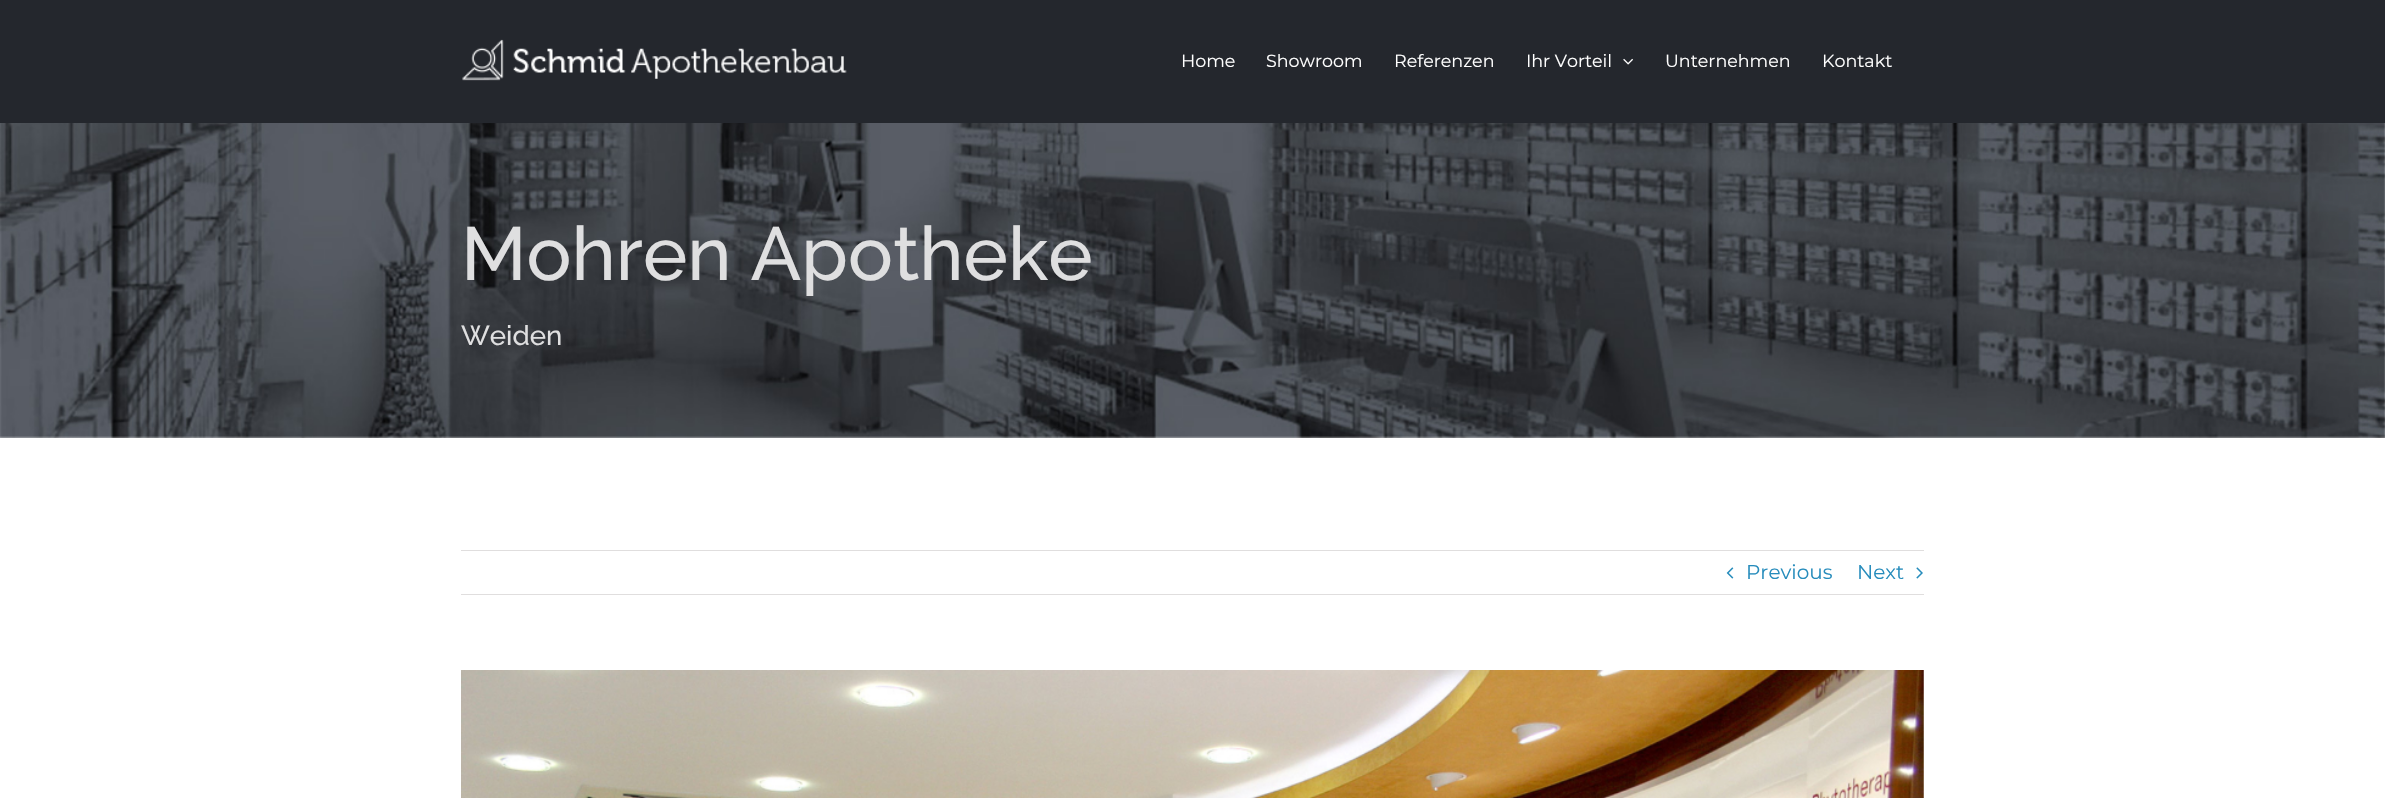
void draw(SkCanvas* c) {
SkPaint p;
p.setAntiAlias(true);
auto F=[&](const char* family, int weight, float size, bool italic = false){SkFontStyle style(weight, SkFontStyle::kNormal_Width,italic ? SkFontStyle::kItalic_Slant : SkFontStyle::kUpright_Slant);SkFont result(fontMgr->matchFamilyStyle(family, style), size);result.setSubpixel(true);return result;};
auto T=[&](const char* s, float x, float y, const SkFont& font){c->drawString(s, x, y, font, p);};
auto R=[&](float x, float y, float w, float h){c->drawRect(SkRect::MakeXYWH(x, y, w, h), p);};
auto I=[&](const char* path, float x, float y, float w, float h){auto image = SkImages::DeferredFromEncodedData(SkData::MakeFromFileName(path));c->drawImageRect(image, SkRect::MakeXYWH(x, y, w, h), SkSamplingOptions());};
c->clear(0xffffffff);
p.setColor(0xff24272d);
R(0,0,2385,123);
I("1.png",462,39,385,42);
auto f1 = F("Montserrat",400,17.5);
p.setColor(0xffffffff);
T("Home",1181,67,f1);
T("Showroom",1266,67,f1);
T("Referenzen",1394,67,f1);
T("Ihr Vorteil",1526,67,f1);
I("2.png",1623,58,10,7);
T("Unternehmen",1665,67,f1);
T("Kontakt",1822,67,f1);
I("3.png",0,123,2385,315);
auto f2 = F("Raleway",100,75);
p.setColor(0xffdfdfe0);
T("Mohren Apotheke",461,280,f2);
auto f3 = F("Raleway",100,27.5);
T("Weiden",461,345,f3);
p.setColor(0xffe0dede);
R(461,550,1463,1);
R(461,594,1463,1);
I("4.png",1726,567,8,12);
auto f4 = F("Montserrat",400,20);
p.setColor(0xff268cbc);
T("Previous",1746,579,f4);
T("Next",1857,579,f4);
I("5.png",1916,567,7,12);
I("6.png",461,670,1463,128);
}
